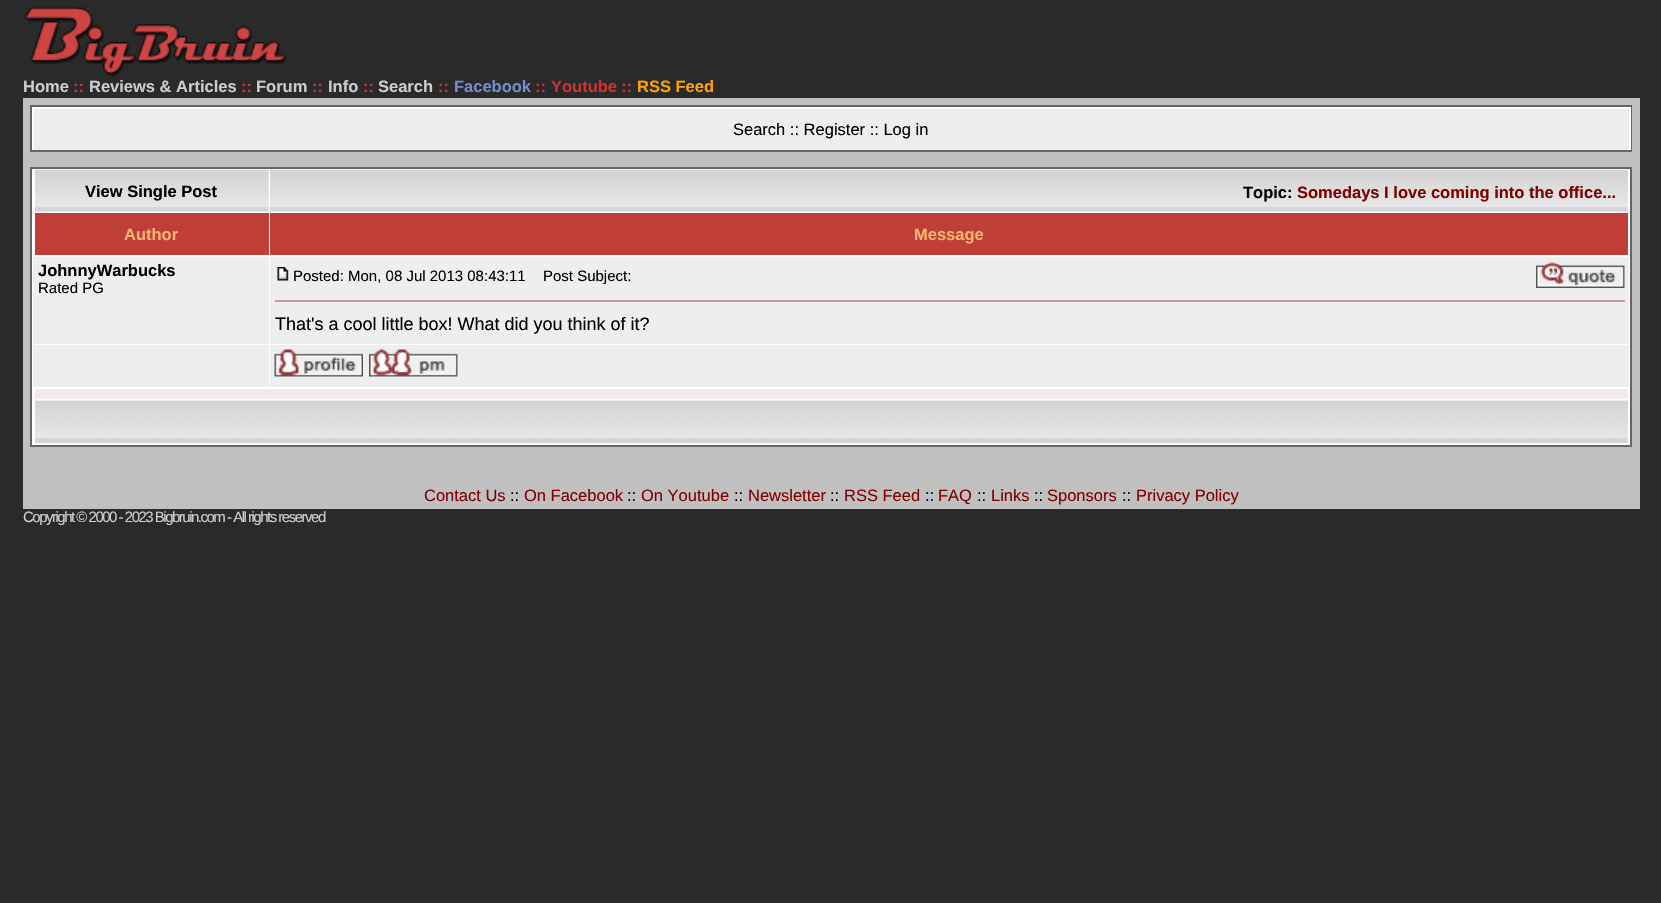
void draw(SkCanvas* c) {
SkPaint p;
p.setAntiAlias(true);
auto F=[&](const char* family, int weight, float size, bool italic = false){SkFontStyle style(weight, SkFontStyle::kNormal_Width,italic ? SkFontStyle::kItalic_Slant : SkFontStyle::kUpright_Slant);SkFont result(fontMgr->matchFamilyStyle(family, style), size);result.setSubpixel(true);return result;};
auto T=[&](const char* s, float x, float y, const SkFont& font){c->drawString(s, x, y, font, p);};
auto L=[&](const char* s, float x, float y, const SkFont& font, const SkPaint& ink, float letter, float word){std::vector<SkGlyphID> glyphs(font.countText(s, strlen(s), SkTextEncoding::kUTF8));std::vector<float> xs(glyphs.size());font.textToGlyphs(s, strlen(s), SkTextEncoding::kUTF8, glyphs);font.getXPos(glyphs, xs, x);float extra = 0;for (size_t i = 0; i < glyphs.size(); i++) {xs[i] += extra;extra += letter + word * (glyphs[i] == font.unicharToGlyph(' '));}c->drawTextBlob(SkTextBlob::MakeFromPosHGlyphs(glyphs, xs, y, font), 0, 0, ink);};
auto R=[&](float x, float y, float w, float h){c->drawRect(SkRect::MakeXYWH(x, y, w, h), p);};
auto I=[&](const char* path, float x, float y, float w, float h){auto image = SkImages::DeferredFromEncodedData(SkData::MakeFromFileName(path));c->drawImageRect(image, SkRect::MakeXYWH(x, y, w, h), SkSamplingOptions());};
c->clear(0xff2a2a2a);
I("1.png",24,6,262,71);
auto f1 = F("Liberation Sans",700,16.5);
p.setColor(0xffcccccc);
T("Home",23,92,f1);
p.setColor(0xffcc3333);
T("::",73,92,f1);
p.setColor(0xffcccccc);
T("Reviews & Articles",89,92,f1);
p.setColor(0xffcc3333);
T("::",241,92,f1);
p.setColor(0xffcccccc);
T("Forum",256,92,f1);
p.setColor(0xffcc3333);
T("::",312,92,f1);
p.setColor(0xffcccccc);
T("Info",328,92,f1);
p.setColor(0xffcc3333);
T("::",363,92,f1);
p.setColor(0xffcccccc);
T("Search",378,92,f1);
p.setColor(0xffcc3333);
T("::",438,92,f1);
p.setColor(0xff788acc);
T("Facebook",454,92,f1);
p.setColor(0xffcc3333);
T("::",535,92,f1);
T("Youtube",551,92,f1);
T("::",621,92,f1);
p.setColor(0xffffa200);
T("RSS Feed",637,92,f1);
p.setColor(0xffc0c0c0);
R(23,98,1617,411);
p.setColor(0xff666666);
R(30,105,1602,47);
p.setColor(0xffeeeeee);
R(34,109,1595,41);
p.setColor(0xffffffff);
R(32,107,1599,2);
R(1629,107,2,43);
R(32,107,2,43);
auto f2 = F("Liberation Sans",400,16.5);
p.setColor(0xff000000);
T("Search :: Register :: Log in",733,135,f2);
p.setColor(0xffffffff);
c->drawRect(SkRect::MakeXYWH(31,168,1600,278),p);
p.setStroke(true);
p.setStrokeWidth(2);
p.setColor(0xff666666);
c->drawRect(SkRect::MakeXYWH(31,168,1600,278),p);
p.setStroke(false);
p.setColor(0xffeeeeee);
R(35,170,234,42);
I("2.png",33,169,236,43);
p.setColor(0xffffffff);
R(33,170,2,42);
p.setColor(0xff000000);
T("View Single Post",85,197,f1);
p.setColor(0xffeeeeee);
R(270,211,1358,1);
I("3.png",270,169,1359,43);
p.setColor(0xffffffff);
R(1628,170,1,42);
p.setColor(0xff000000);
T("Topic:",1243,198,f1);
p.setColor(0xff800000);
T("Somedays I love coming into the office...",1297,198,f1);
p.setColor(0xffbf3e38);
R(35,213,234,42);
p.setColor(0xffffb572);
T("Author",124,240,f1);
p.setColor(0xffbf3e38);
R(270,213,1358,42);
p.setColor(0xffffb572);
T("Message",914,240,f1);
p.setColor(0xffeeeeee);
R(33,257,236,87);
p.setColor(0xff000000);
T("JohnnyWarbucks",38,276,f1);
auto f3 = F("Liberation Sans",400,15);
T("Rated PG",38,293,f3);
p.setColor(0xffeeeeee);
R(270,257,1359,87);
I("4.png",277,267,12,14);
p.setColor(0xff000000);
T("Posted: Mon, 08 Jul 2013 08:43:11",293,281,f3);
T("Post Subject:",543,281,f3);
I("5.png",1536,262,89,26);
p.setColor(0xffcc9999);
R(275,300,1350,2);
auto f4 = F("Liberation Sans",400,18);
p.setColor(0xff000000);
T("That's a cool little box! What did you think of it?",275,330,f4);
p.setColor(0xffeeeeee);
R(33,345,236,42);
R(270,345,1359,42);
I("6.png",274,349,89,28);
I("7.png",369,349,89,28);
p.setColor(0xfff5e9e9);
R(35,389,1593,10);
I("8.png",33,400,1596,43);
p.setColor(0xffffffff);
R(1628,401,1,43);
R(33,401,2,43);
p.setColor(0xff800000);
T("Contact Us",424,501,f2);
p.setColor(0xff000000);
T("::",510,501,f2);
p.setColor(0xff800000);
T("On Facebook",524,501,f2);
p.setColor(0xff000000);
T("::",627,501,f2);
p.setColor(0xff800000);
T("On Youtube",641,501,f2);
p.setColor(0xff000000);
T("::",734,501,f2);
p.setColor(0xff800000);
T("Newsletter",748,501,f2);
p.setColor(0xff000000);
T("::",830,501,f2);
p.setColor(0xff800000);
T("RSS Feed",844,501,f2);
p.setColor(0xff000000);
T("::",925,501,f2);
p.setColor(0xff800000);
T("FAQ",938,501,f2);
p.setColor(0xff000000);
T("::",977,501,f2);
p.setColor(0xff800000);
T("Links",991,501,f2);
p.setColor(0xff000000);
T("::",1034,501,f2);
p.setColor(0xff800000);
T("Sponsors",1047,501,f2);
p.setColor(0xff000000);
T("::",1122,501,f2);
p.setColor(0xff800000);
T("Privacy Policy",1136,501,f2);
p.setColor(0xffcccccc);
L("Copyright © 2000 - 2023 Bigbruin.com - All rights reserved",23,522,f3,p,-1.5,0);
}
